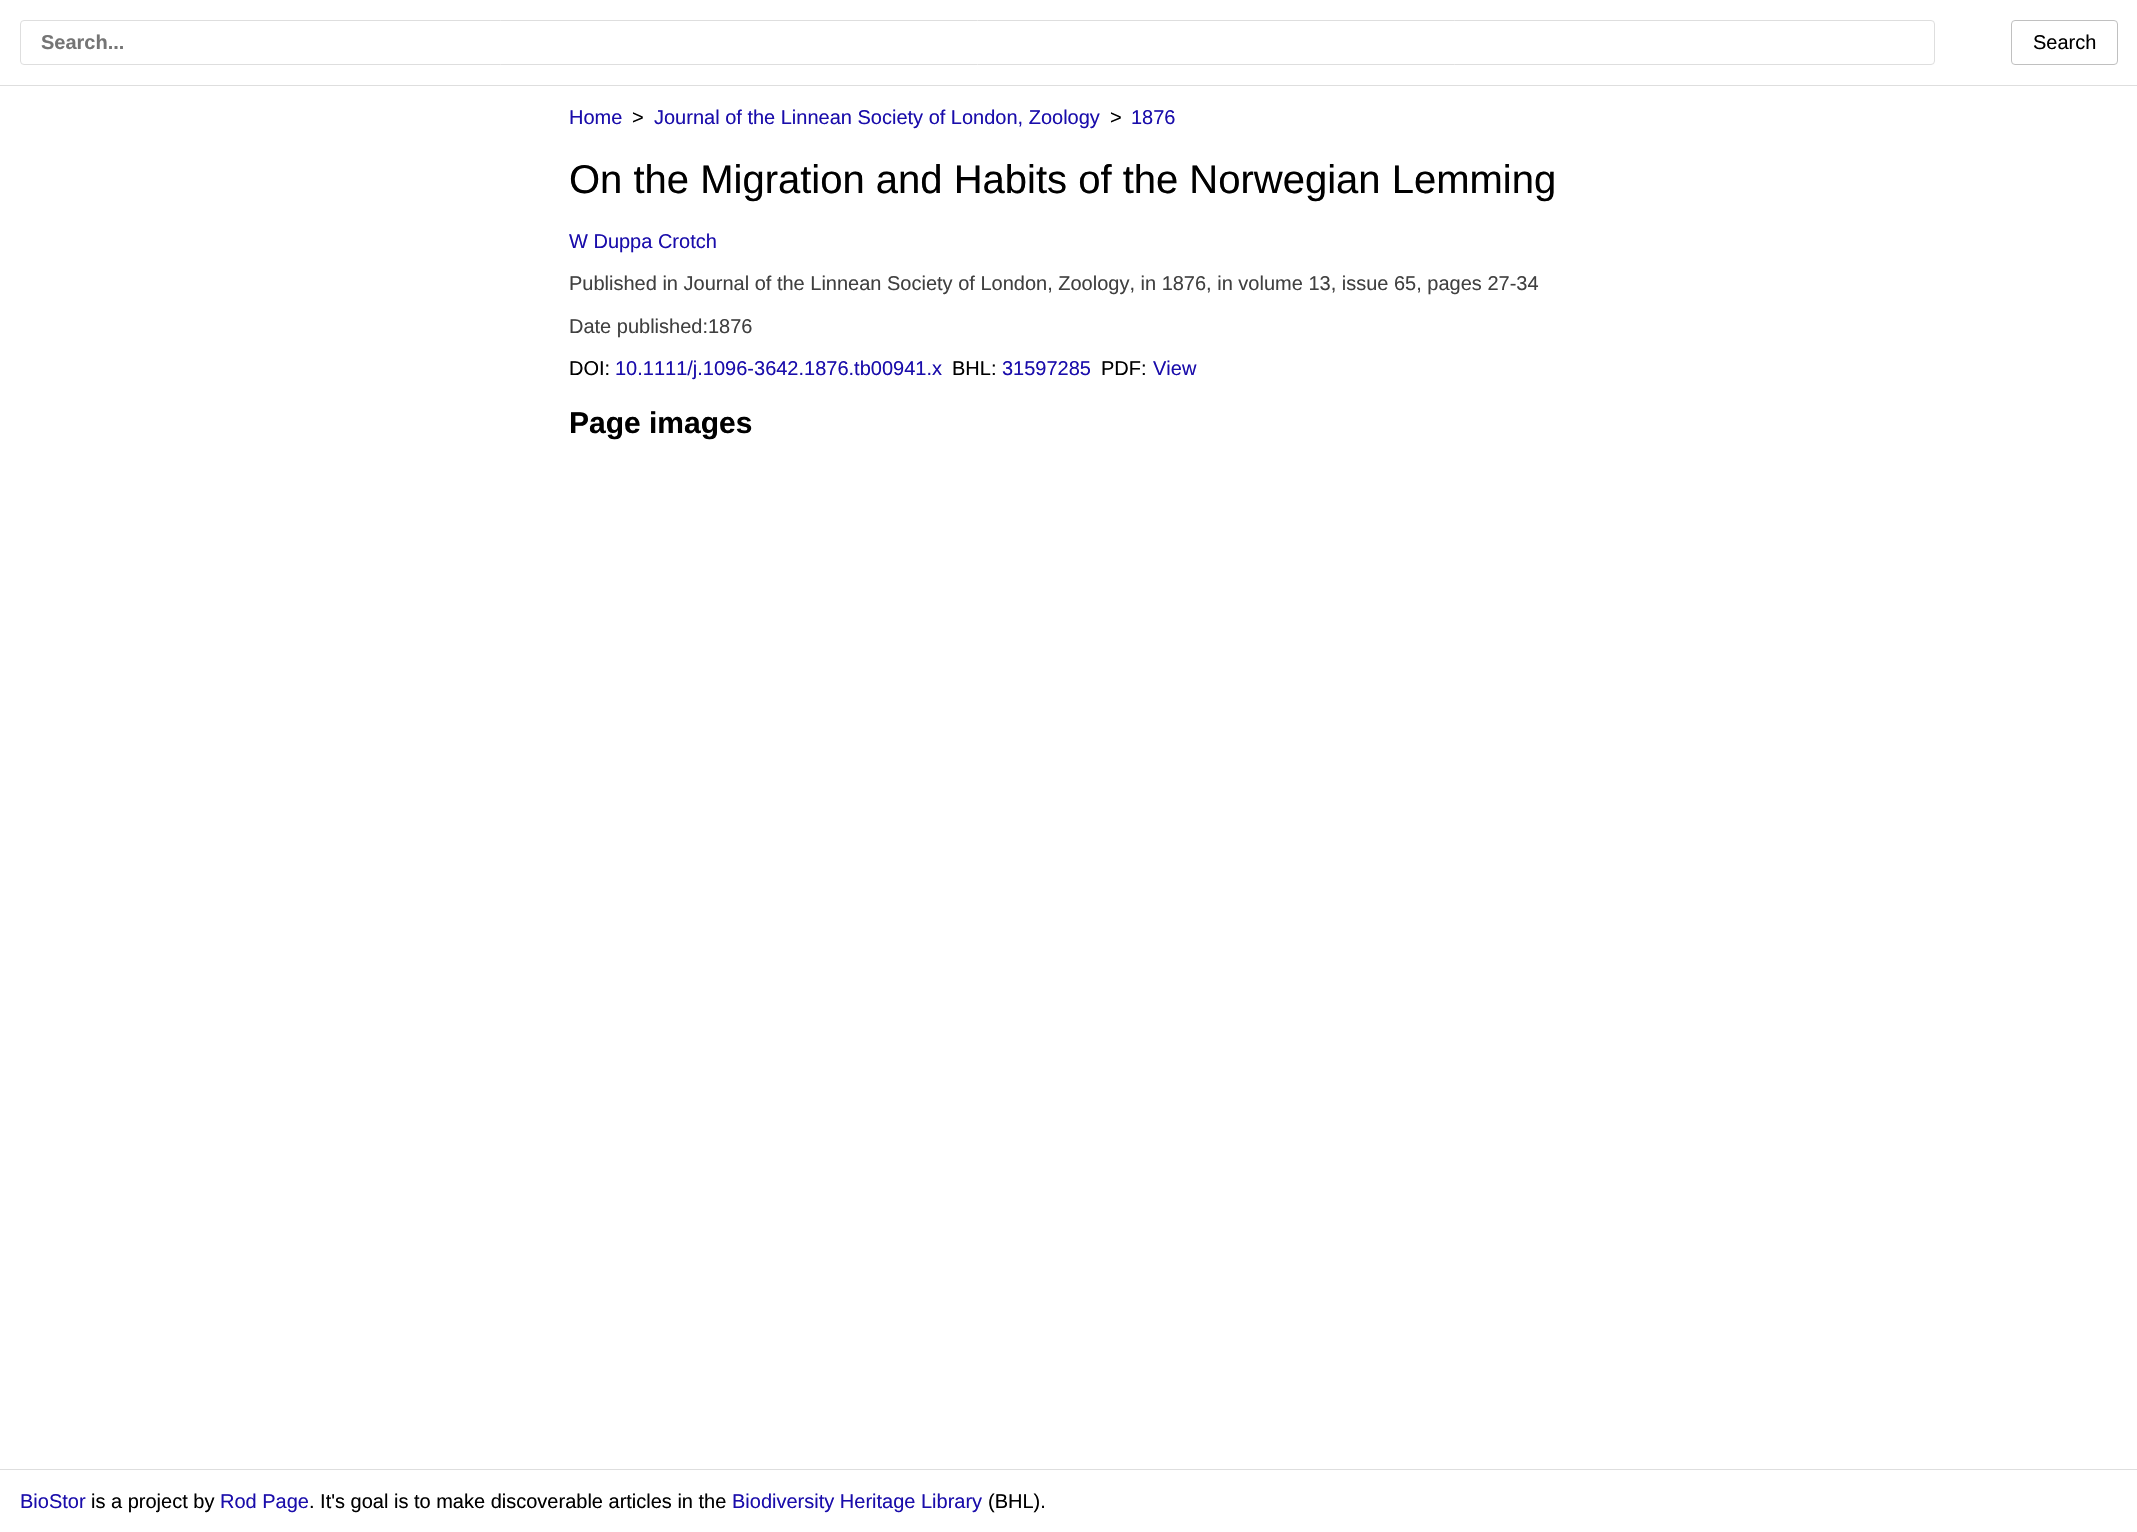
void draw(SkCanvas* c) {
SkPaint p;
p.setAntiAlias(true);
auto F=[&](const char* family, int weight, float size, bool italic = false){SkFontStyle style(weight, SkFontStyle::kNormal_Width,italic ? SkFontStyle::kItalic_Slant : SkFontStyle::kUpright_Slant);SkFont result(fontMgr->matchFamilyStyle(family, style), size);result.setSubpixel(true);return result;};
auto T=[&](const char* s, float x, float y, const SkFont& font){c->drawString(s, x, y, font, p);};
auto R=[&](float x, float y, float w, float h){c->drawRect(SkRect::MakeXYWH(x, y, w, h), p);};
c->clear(0xffffffff);
p.setColor(0xffdedede);
R(0,85,2137,1);
p.setStroke(true);
p.setStrokeWidth(1);
c->drawRoundRect(SkRect::MakeXYWH(20.5,20.5,1914,44),3.5,3.5,p);
auto f1 = F("Liberation Sans",700,20);
p.setStroke(false);
p.setColor(0xff757575);
T("Search...",41,49,f1);
p.setStroke(true);
p.setColor(0xffc0c0c0);
c->drawRoundRect(SkRect::MakeXYWH(2011.5,20.5,106,44),3.5,3.5,p);
auto f2 = F("Liberation Sans",400,20);
p.setStroke(false);
p.setColor(0xff000000);
T("Search",2033,49,f2);
p.setColor(0xff1a0dab);
T("Home",569,124,f2);
p.setColor(0xff000000);
T(">",632,124,f2);
p.setColor(0xff1a0dab);
T("Journal of the Linnean Society of London, Zoology",654,124,f2);
p.setColor(0xff000000);
T(">",1110,124,f2);
p.setColor(0xff1a0dab);
T("1876",1131,124,f2);
auto f3 = F("Liberation Sans",400,40);
p.setColor(0xff000000);
T("On the Migration and Habits of the Norwegian Lemming",569,193,f3);
p.setColor(0xff1a0dab);
T("W Duppa Crotch",569,248,f2);
p.setColor(0xff404040);
T("Published in Journal of the Linnean Society of London, Zoology, in 1876, in volume 13, issue 65, pages 27-34",569,290,f2);
T("Date published:1876",569,333,f2);
p.setColor(0xff000000);
T("DOI:",569,375,f2);
p.setColor(0xff1a0dab);
T("10.1111/j.1096-3642.1876.tb00941.x",615,375,f2);
p.setColor(0xff000000);
T("BHL:",952,375,f2);
p.setColor(0xff1a0dab);
T("31597285",1002,375,f2);
p.setColor(0xff000000);
T("PDF:",1101,375,f2);
p.setColor(0xff1a0dab);
T("View",1153,375,f2);
auto f4 = F("Liberation Sans",700,30);
p.setColor(0xff000000);
T("Page images",569,433,f4);
p.setColor(0xffdedede);
R(0,1469,2137,1);
p.setColor(0xff1a0dab);
T("BioStor",20,1508,f2);
p.setColor(0xff000000);
T("is a project by",91,1508,f2);
p.setColor(0xff1a0dab);
T("Rod Page",220,1508,f2);
p.setColor(0xff000000);
T(". It's goal is to make discoverable articles in the",309,1508,f2);
p.setColor(0xff1a0dab);
T("Biodiversity Heritage Library",732,1508,f2);
p.setColor(0xff000000);
T("(BHL).",988,1508,f2);
}
